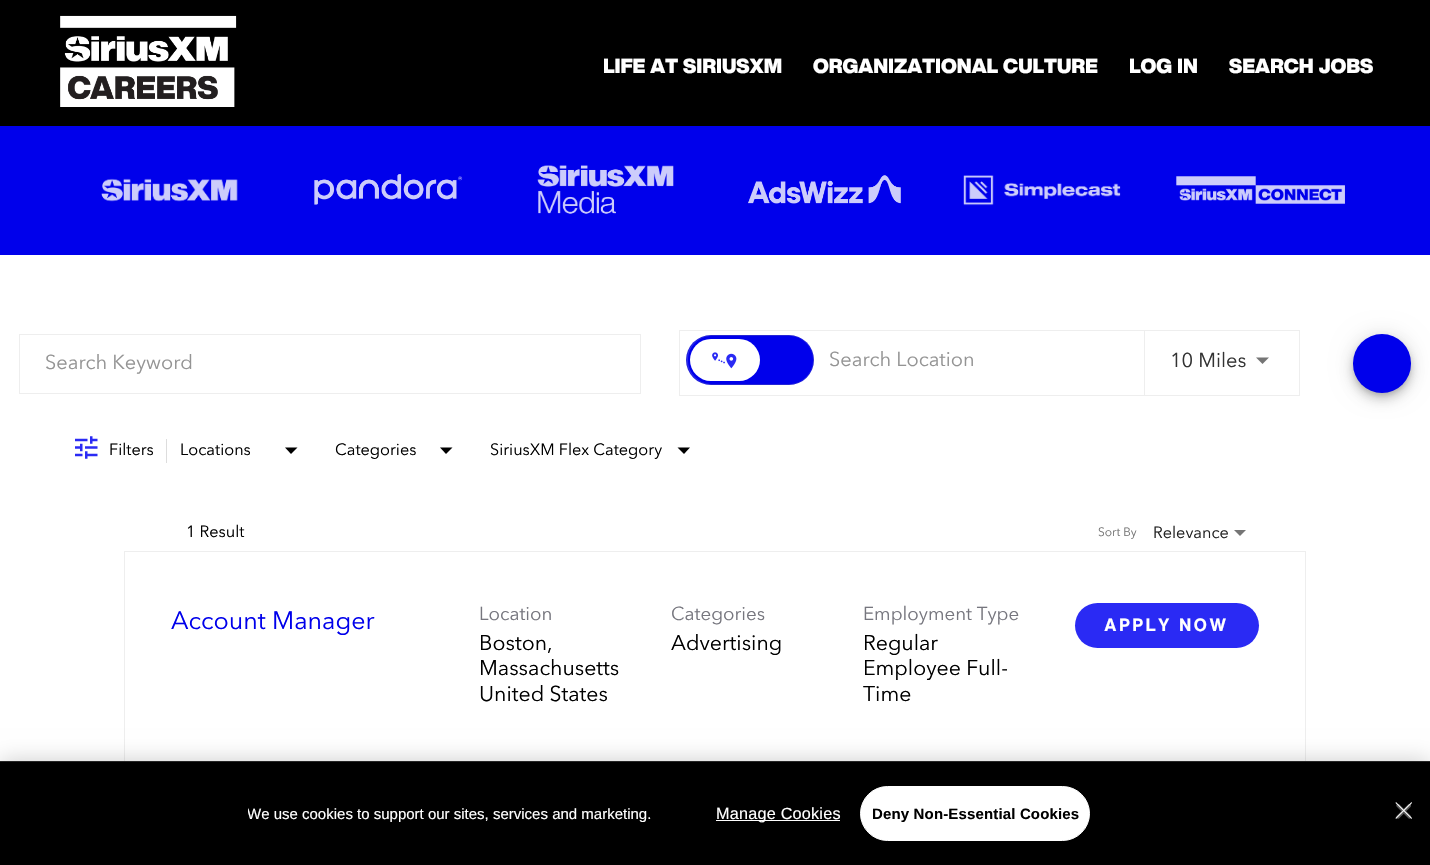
void draw(SkCanvas* c) {
SkPaint p;
p.setAntiAlias(true);
auto F=[&](const char* family, int weight, float size, bool italic = false){SkFontStyle style(weight, SkFontStyle::kNormal_Width,italic ? SkFontStyle::kItalic_Slant : SkFontStyle::kUpright_Slant);SkFont result(fontMgr->matchFamilyStyle(family, style), size);result.setSubpixel(true);return result;};
auto T=[&](const char* s, float x, float y, const SkFont& font){c->drawString(s, x, y, font, p);};
auto L=[&](const char* s, float x, float y, const SkFont& font, const SkPaint& ink, float letter, float word){std::vector<SkGlyphID> glyphs(font.countText(s, strlen(s), SkTextEncoding::kUTF8));std::vector<float> xs(glyphs.size());font.textToGlyphs(s, strlen(s), SkTextEncoding::kUTF8, glyphs);font.getXPos(glyphs, xs, x);float extra = 0;for (size_t i = 0; i < glyphs.size(); i++) {xs[i] += extra;extra += letter + word * (glyphs[i] == font.unicharToGlyph(' '));}c->drawTextBlob(SkTextBlob::MakeFromPosHGlyphs(glyphs, xs, y, font), 0, 0, ink);};
auto R=[&](float x, float y, float w, float h){c->drawRect(SkRect::MakeXYWH(x, y, w, h), p);};
auto Q=[&](float x, float y, float w, float h, float radius){c->drawRoundRect(SkRect::MakeXYWH(x, y, w, h), radius, radius, p);};
auto I=[&](const char* path, float x, float y, float w, float h){auto image = SkImages::DeferredFromEncodedData(SkData::MakeFromFileName(path));c->drawImageRect(image, SkRect::MakeXYWH(x, y, w, h), SkSamplingOptions());};
auto P=[&](const char* data, bool evenOdd = false){SkPath result = *SkParsePath::FromSVGString(data);if (evenOdd) result.setFillType(SkPathFillType::kEvenOdd);return result;};
c->clear(0xffffffff);
p.setColor(0xff000000);
R(0,0,1430,126);
I("1.png",60,15,177,92);
auto f1 = F("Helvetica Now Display",900,20);
p.setColor(0xffffffff);
T("LIFE AT SIRIUSXM",603,73,f1);
T("ORGANIZATIONAL CULTURE",813,73,f1);
T("LOG IN",1129,73,f1);
T("SEARCH JOBS",1229,73,f1);
p.setColor(0xff0000eb);
R(0,126,1430,129);
I("2.png",101,178,137,24);
I("3.png",314,174,149,31);
I("4.png",537,165,137,49);
I("5.png",748,175,153,29);
I("6.png",963,175,158,31);
I("7.png",1176,176,169,28);
p.setStroke(true);
p.setStrokeWidth(1);
p.setColor(0xffeeeeee);
c->drawRect(SkRect::MakeXYWH(19.5,334.5,621,59),p);
auto f2 = F("Avenir Next",400,20);
p.setStroke(false);
p.setColor(0xff949494);
T("Search Keyword",45,369,f2);
p.setStroke(true);
p.setColor(0xffeeeeee);
c->drawRect(SkRect::MakeXYWH(679.5,330.5,620,65),p);
p.setStroke(false);
p.setColor(0xff2a2af4);
Q(686,335,128,50,25);
p.setStroke(true);
p.setColor(0x1f000000);
c->drawRoundRect(SkRect::MakeXYWH(686.5,335.5,127,49),24.5,24.5,p);
p.setStroke(false);
p.setColor(0xff0000eb);
c->drawPath(P("M712 336h51v48h-51c-13.5 0-24-10.5-24-24c0-13.5 10.5-24 24-24z"),p);
p.setColor(0xffffffff);
Q(690,339,70,42,21);
I("8.png",712,352,25,17);
p.setColor(0xff0000eb);
c->drawPath(P("M763 336h26c13.5 0 24 10.5 24 24c0 13.5-10.5 24-24 24h-26z"),p);
p.setColor(0xff949494);
T("Search Location",829,366,f2);
p.setColor(0xffeeeeee);
R(1144,331,1,64);
p.setColor(0xff333333);
T("10 Miles",1170,367,f2);
p.setColor(0xff757575);
c->drawPath(P("M1256 357.5h13l-6.5 6.5z"),p);
p.setColor(0x1f000000);
p.setMaskFilter(SkMaskFilter::MakeBlur(kNormal_SkBlurStyle, 11));
c->drawRoundRect(SkRect::MakeXYWH(1353,335,58,59),29,29,p);
p.setMaskFilter(nullptr);
p.setColor(0x24000000);
p.setMaskFilter(SkMaskFilter::MakeBlur(kNormal_SkBlurStyle, 6));
c->drawRoundRect(SkRect::MakeXYWH(1353,341,58,59),29,29,p);
p.setMaskFilter(nullptr);
p.setColor(0x33000000);
p.setMaskFilter(SkMaskFilter::MakeBlur(kNormal_SkBlurStyle, 3));
c->drawRoundRect(SkRect::MakeXYWH(1354,339,56,56),28,28,p);
p.setMaskFilter(nullptr);
p.setColor(0xff0000eb);
Q(1353,334,58,59,29);
I("9.png",75,436,23,23);
p.setColor(0xffdddddd);
R(166,439,1,24);
auto f3 = F("Avenir Next",400,16.25);
p.setColor(0xff000000);
T("Filters",109,455,f3);
T("Locations",180,455,f3);
c->drawPath(P("M285 447.5h12.5l-6.5 6.5z"),p);
T("Categories",335,455,f3);
c->drawPath(P("M440 447.5h12.5l-6.5 6.5z"),p);
T("SiriusXM Flex Category",490,455,f3);
c->drawPath(P("M677.5 447.5h12.5l-6 6.5z"),p);
T("1 Result",186,537,f3);
auto f4 = F("Avenir Next",400,12);
p.setColor(0xff757575);
T("Sort By",1098,536,f4);
p.setColor(0xff212121);
T("Relevance",1153,538,f3);
p.setColor(0xff757575);
c->drawPath(P("M1234 530h12l-6 6z"),p);
p.setStroke(true);
p.setColor(0xffeeeeee);
c->drawRect(SkRect::MakeXYWH(124.5,551.5,1181,211),p);
auto f5 = F("Avenir Next",400,25);
p.setStroke(false);
p.setColor(0xff0000eb);
T("Account Manager",171,629,f5);
auto f6 = F("Avenir Next",400,18.75);
p.setColor(0xff76767e);
T("Location",479,620,f6);
auto f7 = F("Avenir Next",400,21.25);
p.setColor(0xff000000);
T("Boston,",479,650,f7);
T("Massachusetts",479,675,f7);
T("United States",479,701,f7);
p.setColor(0xff76767e);
T("Categories",671,620,f6);
p.setColor(0xff000000);
T("Advertising",671,650,f7);
p.setColor(0xff76767e);
T("Employment Type",863,620,f6);
p.setColor(0xff000000);
T("Regular",863,650,f7);
T("Employee Full-",863,675,f7);
T("Time",863,701,f7);
p.setColor(0xff2a2af4);
Q(1075,603,184,45,22.5);
auto f8 = F("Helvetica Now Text",700,17.5);
p.setColor(0xffffffff);
L("APPLY NOW",1104,631,f8,p,2.5,0);
p.setColor(0x33000000);
p.setMaskFilter(SkMaskFilter::MakeBlur(kNormal_SkBlurStyle, 11));
c->drawRect(SkRect::MakeXYWH(0,761,1430,104),p);
p.setMaskFilter(nullptr);
p.setColor(0xff000000);
R(0,762,1430,103);
p.setColor(0xff262626);
R(0,761,1430,1);
c->save();
c->clipRect(SkRect::MakeXYWH(248,803,403,22));
auto f9 = F("Liberation Sans",400,15);
p.setColor(0xffffffff);
T("We use cookies to support our sites, services and marketing.",247,819,f9);
c->restore();
R(716,820,124,1);
auto f10 = F("Liberation Sans",400,16.25);
L("Manage Cookies",716,819,f10,p,.2,0);
c->drawRoundRect(SkRect::MakeXYWH(860.5,786.5,229,54),27,27,p);
p.setStroke(true);
c->drawRoundRect(SkRect::MakeXYWH(860.5,786.5,229,54),27,27,p);
auto f11 = F("Liberation Sans",700,15);
p.setStroke(false);
p.setColor(0xff000000);
L("Deny Non-Essential Cookies",872,819,f11,p,.15,0);
I("10.png",1396,804,15,15);
p.setColor(0xffffffff);
c->drawPath(P("M1396 802l16 16l-.5 1l-16-16z"),p);
c->drawPath(P("M1412 803l-16 16l-.5-1l16-16z"),p);
}
